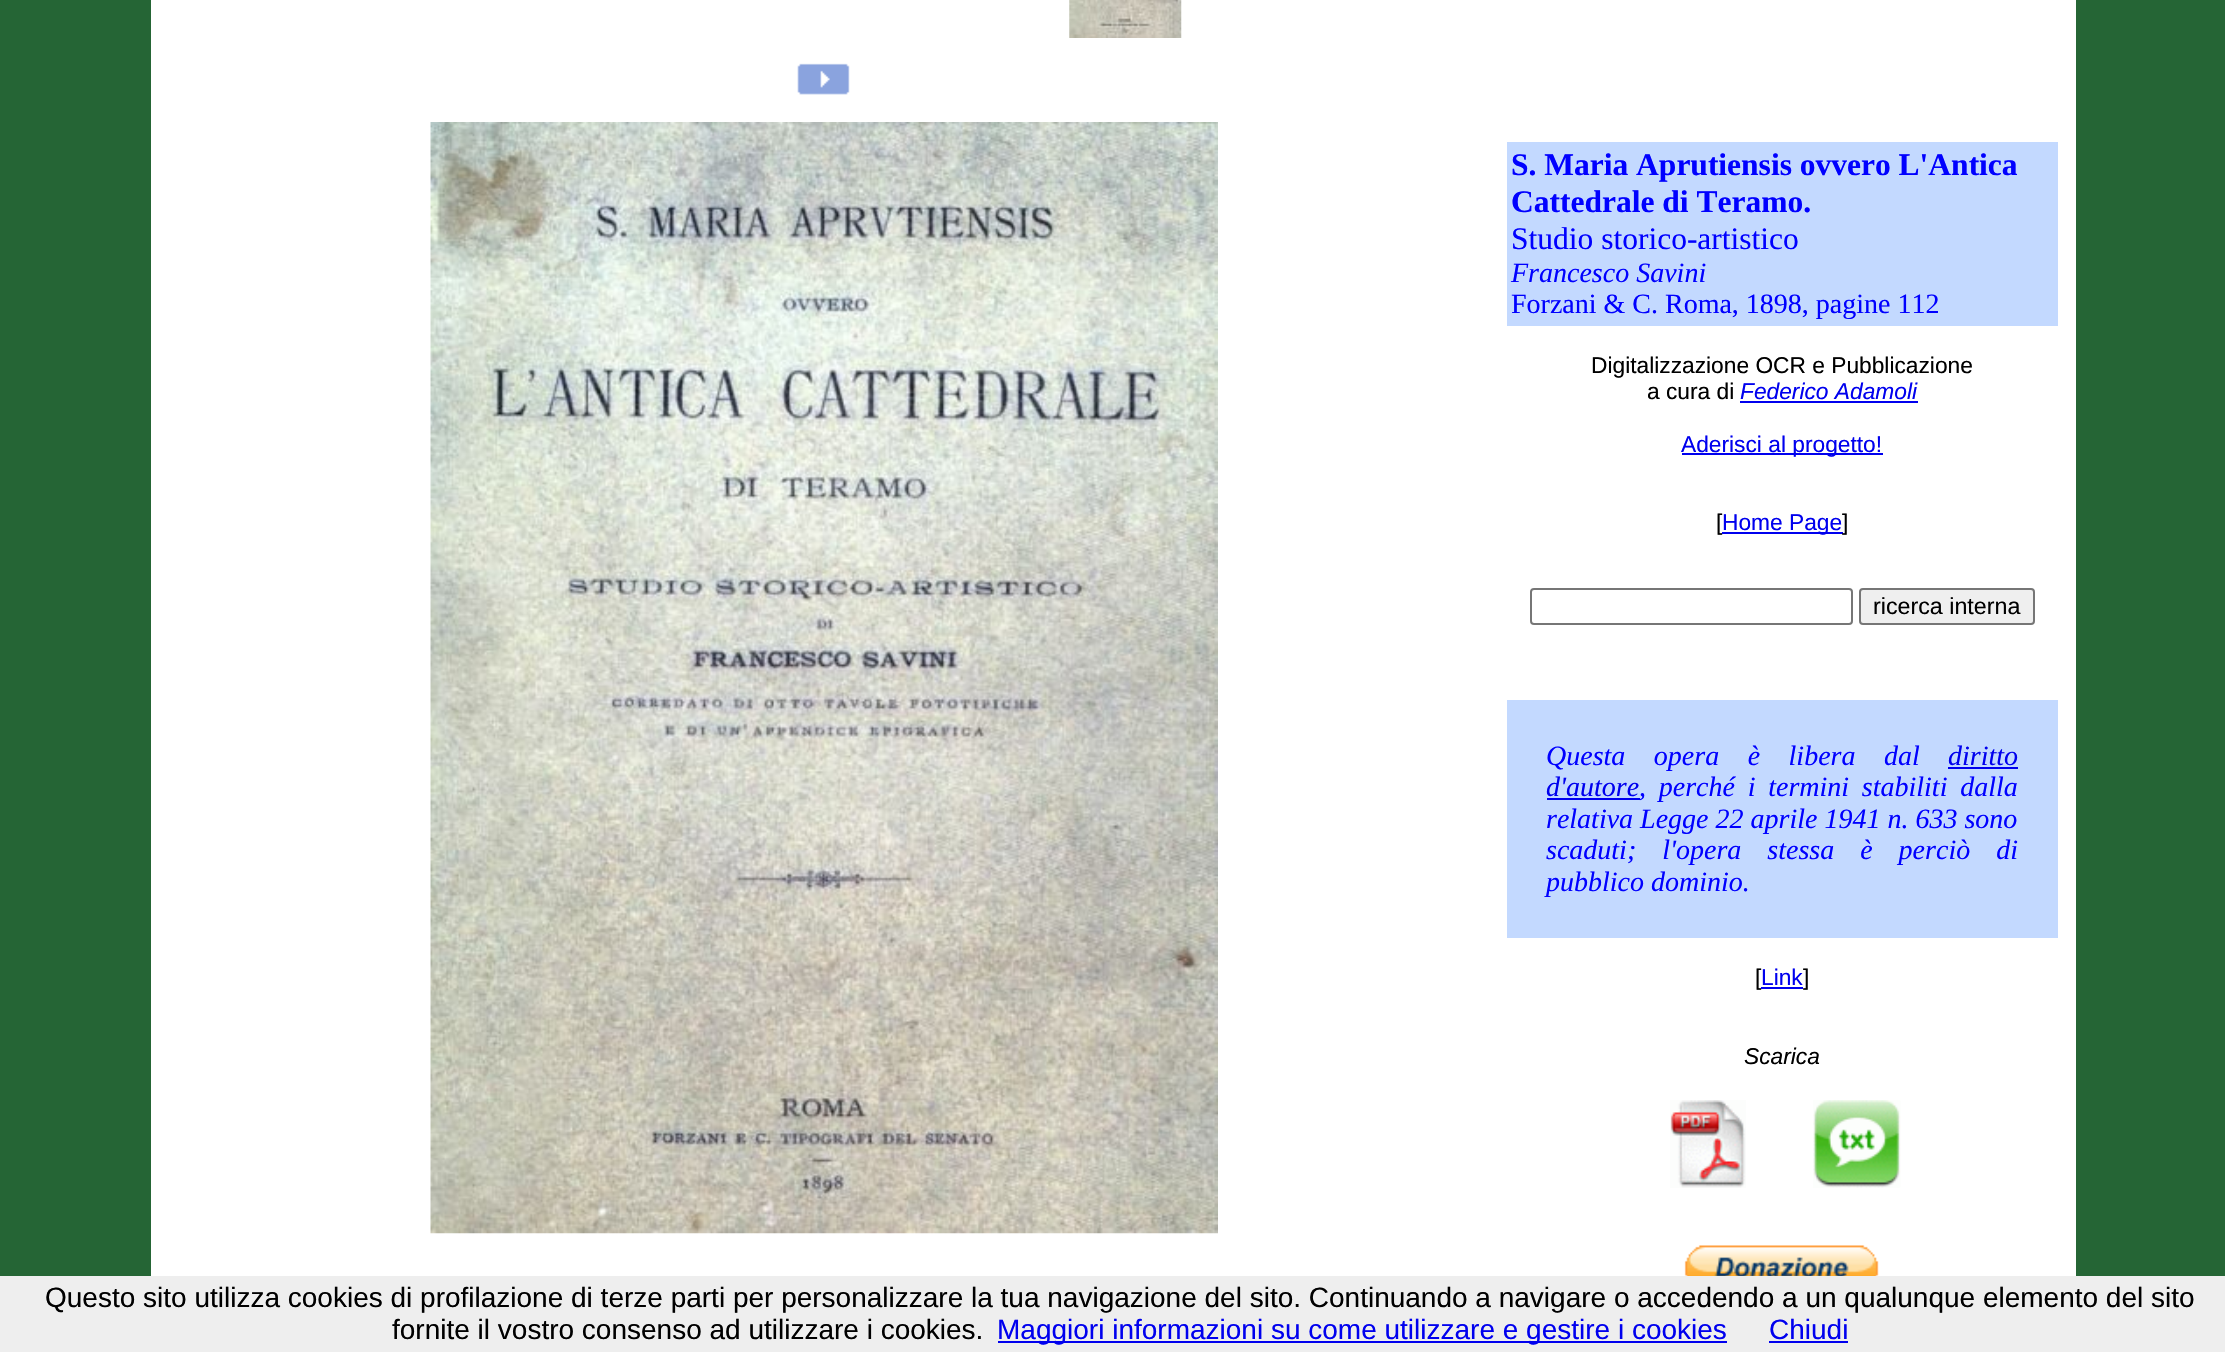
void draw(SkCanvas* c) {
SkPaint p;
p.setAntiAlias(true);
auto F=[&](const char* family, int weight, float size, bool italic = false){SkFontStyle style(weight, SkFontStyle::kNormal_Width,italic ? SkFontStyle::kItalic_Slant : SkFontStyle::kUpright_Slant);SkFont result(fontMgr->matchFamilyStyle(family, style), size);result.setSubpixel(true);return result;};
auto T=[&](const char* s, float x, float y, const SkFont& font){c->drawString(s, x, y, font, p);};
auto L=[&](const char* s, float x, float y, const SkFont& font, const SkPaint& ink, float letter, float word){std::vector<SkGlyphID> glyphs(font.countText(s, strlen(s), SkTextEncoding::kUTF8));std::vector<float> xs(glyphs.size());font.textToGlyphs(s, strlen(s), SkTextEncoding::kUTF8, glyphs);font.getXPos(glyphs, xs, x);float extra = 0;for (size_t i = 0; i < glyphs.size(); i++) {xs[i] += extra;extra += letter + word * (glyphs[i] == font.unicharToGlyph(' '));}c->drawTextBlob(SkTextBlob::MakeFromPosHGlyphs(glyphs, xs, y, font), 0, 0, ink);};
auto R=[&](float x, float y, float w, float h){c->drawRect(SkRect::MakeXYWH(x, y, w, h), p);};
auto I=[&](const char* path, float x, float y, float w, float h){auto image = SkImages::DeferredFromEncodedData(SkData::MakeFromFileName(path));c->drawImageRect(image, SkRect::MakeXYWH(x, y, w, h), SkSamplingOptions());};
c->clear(0xff256535);
p.setColor(0xffffffff);
R(151,0,1925,1276);
I("1.png",1069,0,113,38);
I("2.png",797,63,53,32);
I("3.png",430,122,788,1112);
p.setColor(0xffc3d9ff);
R(1507,142,551,184);
auto f1 = F("Liberation Serif",700,31.5);
p.setColor(0xff0000ff);
T("S. Maria Aprutiensis ovvero L'Antica",1511,175,f1);
T("Cattedrale di Teramo.",1511,212,f1);
auto f2 = F("Liberation Serif",400,31.5);
T("Studio storico-artistico",1511,249,f2);
auto f3 = F("Liberation Serif",400,28,true);
T("Francesco Savini",1511,282,f3);
auto f4 = F("Liberation Serif",400,28);
T("Forzani & C. Roma, 1898, pagine 112",1511,313,f4);
auto f5 = F("Liberation Sans",400,22.75);
p.setColor(0xff000000);
T("Digitalizzazione OCR e Pubblicazione",1591,373,f5);
T("a cura di",1647,399,f5);
auto f6 = F("Liberation Sans",400,22.75,true);
p.setColor(0xff0000ee);
T("Federico Adamoli",1740,399,f6);
R(1740,401,178,2);
R(1682,453,201,2);
T("Aderisci al progetto!",1681,452,f5);
p.setColor(0xff000000);
T("[",1716,530,f5);
p.setColor(0xff0000ee);
R(1722,532,121,2);
T("Home Page",1722,530,f5);
p.setColor(0xff000000);
T("]",1842,530,f5);
p.setStroke(true);
p.setStrokeWidth(2);
p.setColor(0xff767676);
c->drawRoundRect(SkRect::MakeXYWH(1531,589,321,35),3,3,p);
p.setStroke(false);
p.setColor(0xffefefef);
c->drawRoundRect(SkRect::MakeXYWH(1860,589,174,35),3,3,p);
p.setStroke(true);
p.setColor(0xff767676);
c->drawRoundRect(SkRect::MakeXYWH(1860,589,174,35),3,3,p);
auto f7 = F("Liberation Sans",400,23.25);
p.setStroke(false);
p.setColor(0xff000000);
T("ricerca interna",1873,614,f7);
p.setColor(0xffc3d9ff);
R(1507,700,551,238);
p.setColor(0xff0000ff);
L("Questa opera è libera dal",1546,765,f3,p,0,21.5);
p.setColor(0xff0000ee);
T("diritto",1948,765,f3);
R(1948,767,70,2);
T("d'autore",1546,796,f3);
p.setColor(0xff0000ff);
L(", perché i termini stabiliti dalla",1639,796,f3,p,0,5.75);
p.setColor(0xff0000ee);
R(1547,798,93,2);
p.setColor(0xff0000ff);
T("relativa Legge 22 aprile 1941 n. 633 sono",1546,828,f3);
L("scaduti; l'opera stessa è perciò di",1546,859,f3,p,0,19);
T("pubblico dominio.",1546,891,f3);
p.setColor(0xff000000);
T("[",1755,985,f5);
p.setColor(0xff0000ee);
T("Link",1761,985,f5);
R(1761,987,42,2);
p.setColor(0xff000000);
T("]",1803,985,f5);
T("Scarica",1744,1064,f6);
I("4.png",1670,1100,76,88);
I("5.png",1813,1100,88,88);
I("6.png",1684,1245,195,31);
p.setColor(0xffeeeeee);
R(0,1276,2225,76);
auto f8 = F("Liberation Sans",400,28);
p.setColor(0xff000000);
T("Questo sito utilizza cookies di profilazione di terze parti per personalizzare la tua navigazione del sito. Continuando a navigare o accedendo a un qualunque elemento del sito",45,1307,f8);
T("fornite il vostro consenso ad utilizzare i cookies.",392,1339,f8);
p.setColor(0xff0000ee);
R(998,1341,729,2);
T("Maggiori informazioni su come utilizzare e gestire i cookies",997,1339,f8);
T("Chiudi",1769,1339,f8);
R(1769,1341,79,2);
}
